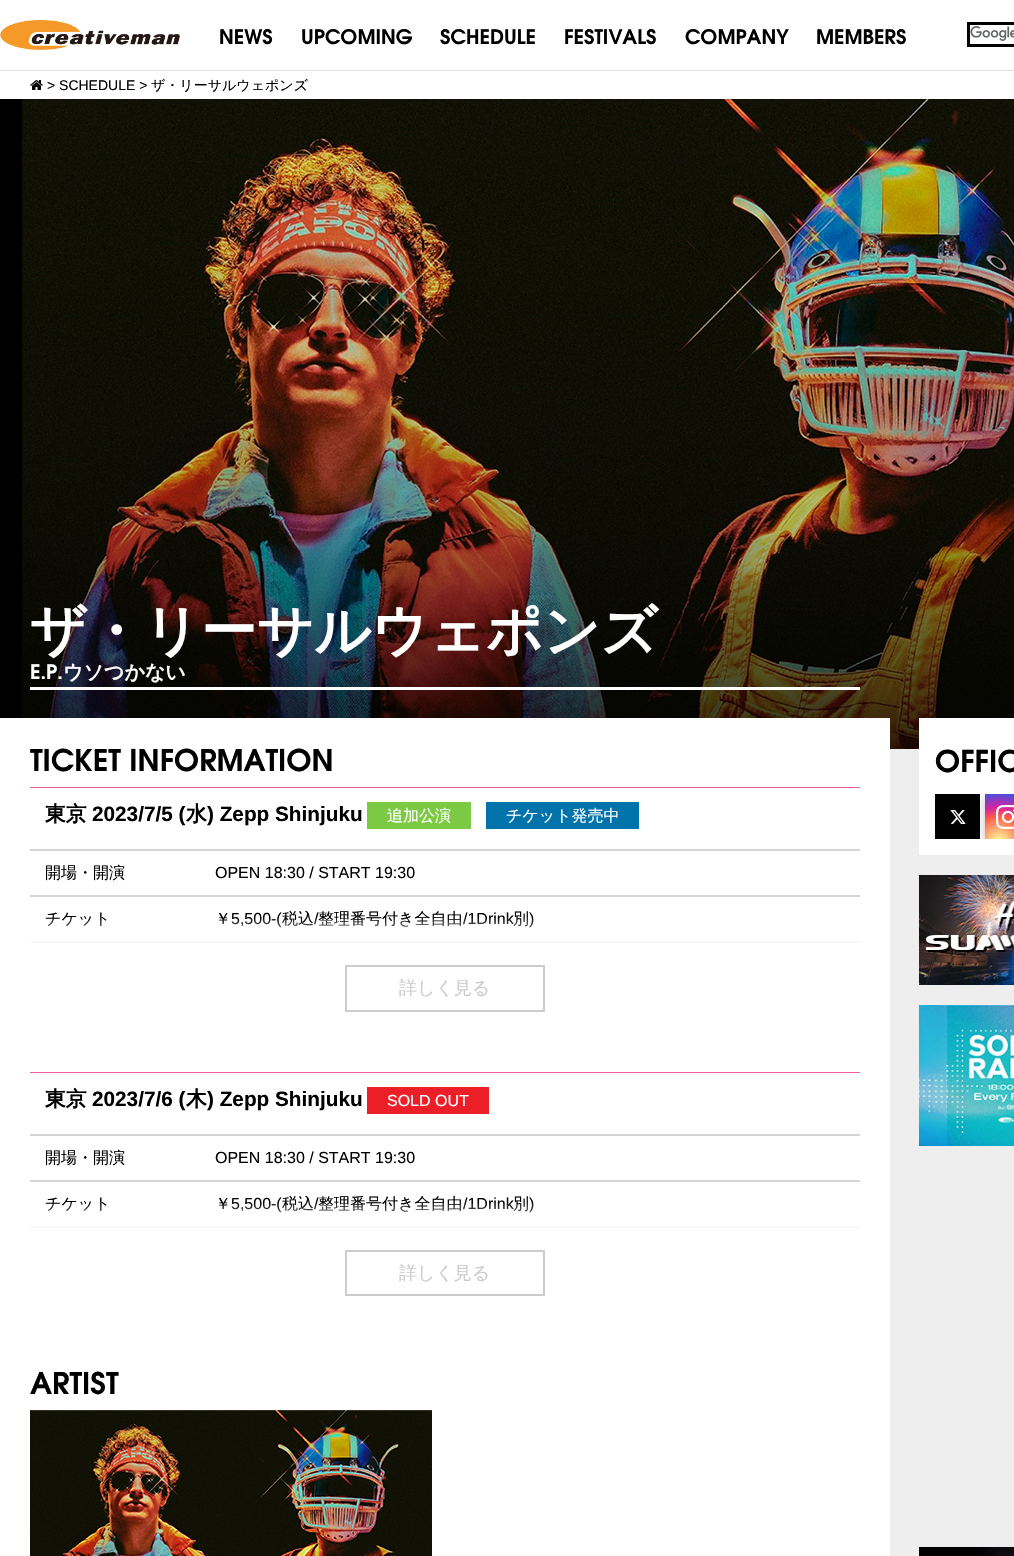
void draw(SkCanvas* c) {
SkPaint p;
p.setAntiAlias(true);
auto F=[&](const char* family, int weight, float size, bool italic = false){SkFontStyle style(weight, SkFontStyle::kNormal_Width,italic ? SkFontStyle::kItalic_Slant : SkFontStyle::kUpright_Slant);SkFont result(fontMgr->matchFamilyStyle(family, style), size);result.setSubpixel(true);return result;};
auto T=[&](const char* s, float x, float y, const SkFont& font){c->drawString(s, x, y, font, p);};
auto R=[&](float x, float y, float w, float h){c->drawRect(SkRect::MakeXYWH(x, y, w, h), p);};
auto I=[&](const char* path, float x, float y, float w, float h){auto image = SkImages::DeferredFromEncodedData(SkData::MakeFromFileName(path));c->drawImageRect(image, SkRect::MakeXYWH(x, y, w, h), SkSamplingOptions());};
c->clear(0xffeeeeee);
p.setColor(0xffffffff);
R(0,0,1014,70);
I("1.png",0,20,180,30);
auto f1 = F("TeX Gyre Adventor",700,20);
p.setColor(0xff000000);
T("NEWS",219,44,f1);
T("UPCOMING",301,44,f1);
T("SCHEDULE",440,44,f1);
T("FESTIVALS",564,44,f1);
T("COMPANY",685,44,f1);
T("MEMBERS",816,44,f1);
R(967,22,47,3);
R(967,44,47,3);
R(967,22,3,25);
I("2.png",970,26,44,15);
p.setColor(0xffffffff);
R(0,71,1014,28);
p.setColor(0xffe0e0e0);
R(0,70,1014,1);
I("3.png",30,80,13,10);
auto f2 = F("Liberation Sans",400,14);
p.setColor(0xff000000);
T("> SCHEDULE >",47,90,f2);
auto f3 = F("WenQuanYi Zen Hei",500,14);
T("ザ・リーサルウェポンズ",151,90,f3);
I("4.png",0,99,1014,650);
p.setColor(0xffffffff);
R(30,687,830,3);
auto f4 = F("WenQuanYi Zen Hei",700,56);
T("ザ・リーサルウェポンズ",30,650,f4);
T("E.P.",30,679,f1);
auto f5 = F("WenQuanYi Zen Hei",700,20);
T("ウソつかない",63,679,f5);
R(0,718,890,838);
auto f6 = F("TeX Gyre Adventor",700,29.9);
p.setColor(0xff000000);
T("TICKET INFORMATION",30,771,f6);
p.setColor(0xffee60a2);
R(30,787,830,1);
p.setColor(0xffd5d5d5);
R(30,849,830,2);
auto f7 = F("WenQuanYi Zen Hei",700,20.75);
p.setColor(0xff000000);
T("東京",45,821,f7);
auto f8 = F("Liberation Sans",700,20.75);
T("2023/7/5 (",92,821,f8);
T("水",186,821,f7);
T(") Zepp Shinjuku",207,821,f8);
p.setColor(0xff7cca43);
R(367,802,104,27);
auto f9 = F("WenQuanYi Zen Hei",500,16);
p.setColor(0xffffffff);
T("追加公演",387,821,f9);
p.setColor(0xff0073aa);
R(486,802,153,27);
p.setColor(0xffffffff);
T("チケット発売中",506,821,f9);
p.setColor(0xffd5d5d5);
R(30,895,830,2);
p.setColor(0xff000000);
T("開場・開演",45,878,f9);
auto f10 = F("Liberation Sans",400,16);
T("OPEN 18:30 / START 19:30",215,878,f10);
p.setColor(0xffd5d5d5);
R(30,941,830,2);
p.setColor(0xff000000);
T("チケット",45,924,f9);
T("￥",215,924,f9);
T("5,500-(",231,924,f10);
T("税込",282,924,f9);
T("/",314,924,f10);
T("整理番号付き全自由",318,924,f9);
T("/1Drink",463,924,f10);
T("別",513,924,f9);
T(")",529,924,f10);
{
const SkColor colors[] = {0xffffffff,0x00ffffff};
const float stops[] = {0,1};
const SkPoint ends[] = {{445,947}, {445,917}};
p.setShader(SkGradientShader::MakeLinear(ends, colors, stops, 2, SkTileMode::kClamp));
p.setAlpha(255);
}
R(30,918,830,25);
p.setStroke(true);
p.setStrokeWidth(2);
p.setShader(nullptr);
p.setColor(0xffcccccc);
c->drawRect(SkRect::MakeXYWH(346,966,198,45),p);
auto f11 = F("WenQuanYi Zen Hei",500,18);
p.setStroke(false);
T("詳しく見る",399,994,f11);
p.setColor(0xffee60a2);
R(30,1072,830,1);
p.setColor(0xffd5d5d5);
R(30,1134,830,2);
p.setColor(0xff000000);
T("東京",45,1106,f7);
T("2023/7/6 (",92,1106,f8);
T("木",186,1106,f7);
T(") Zepp Shinjuku",207,1106,f8);
p.setColor(0xffec1e27);
R(367,1087,122,27);
p.setColor(0xffffffff);
T("SOLD OUT",387,1106,f10);
p.setColor(0xffd5d5d5);
R(30,1180,830,2);
p.setColor(0xff000000);
T("開場・開演",45,1163,f9);
T("OPEN 18:30 / START 19:30",215,1163,f10);
p.setColor(0xffd5d5d5);
R(30,1226,830,2);
p.setColor(0xff000000);
T("チケット",45,1209,f9);
T("￥",215,1209,f9);
T("5,500-(",231,1209,f10);
T("税込",282,1209,f9);
T("/",314,1209,f10);
T("整理番号付き全自由",318,1209,f9);
T("/1Drink",463,1209,f10);
T("別",513,1209,f9);
T(")",529,1209,f10);
{
const SkColor colors[] = {0xffffffff,0x00ffffff};
const float stops[] = {0,1};
const SkPoint ends[] = {{445,1232}, {445,1202}};
p.setShader(SkGradientShader::MakeLinear(ends, colors, stops, 2, SkTileMode::kClamp));
p.setAlpha(255);
}
R(30,1203,830,25);
p.setStroke(true);
p.setShader(nullptr);
p.setColor(0xffcccccc);
c->drawRect(SkRect::MakeXYWH(346,1251,198,44),p);
p.setStroke(false);
T("詳しく見る",399,1279,f11);
p.setColor(0xff000000);
T("ARTIST",30,1394,f6);
I("5.png",30,1410,402,146);
p.setColor(0xffffffff);
R(919,718,95,137);
auto f12 = F("TeX Gyre Adventor",700,30);
p.setColor(0xff000000);
T("OFFIC",935,772,f12);
R(935,794,45,45);
I("6.png",950,810,16,14);
c->save();
c->clipRect(SkRect::MakeXYWH(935,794,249,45));
p.setColor(0x40000000);
p.setMaskFilter(SkMaskFilter::MakeBlur(kNormal_SkBlurStyle, 5));
c->drawRect(SkRect::MakeXYWH(985,797,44,45),p);
p.setMaskFilter(nullptr);
c->restore();
{
const SkColor colors[] = {0xfffdf497,0xfffdf497,0xfffd5949,0xffd6249f,0xff285aeb};
const float stops[] = {0,.05,.45,.6,.9};
p.setShader(SkGradientShader::MakeRadial({999,842}, 58, colors, stops, 5, SkTileMode::kClamp));
p.setAlpha(255);
}
R(985,794,29,45);
I("7.png",996,805,18,24);
I("8.png",919,875,95,110);
I("9.png",919,1005,95,141);
I("10.png",919,1547,95,9);
}
